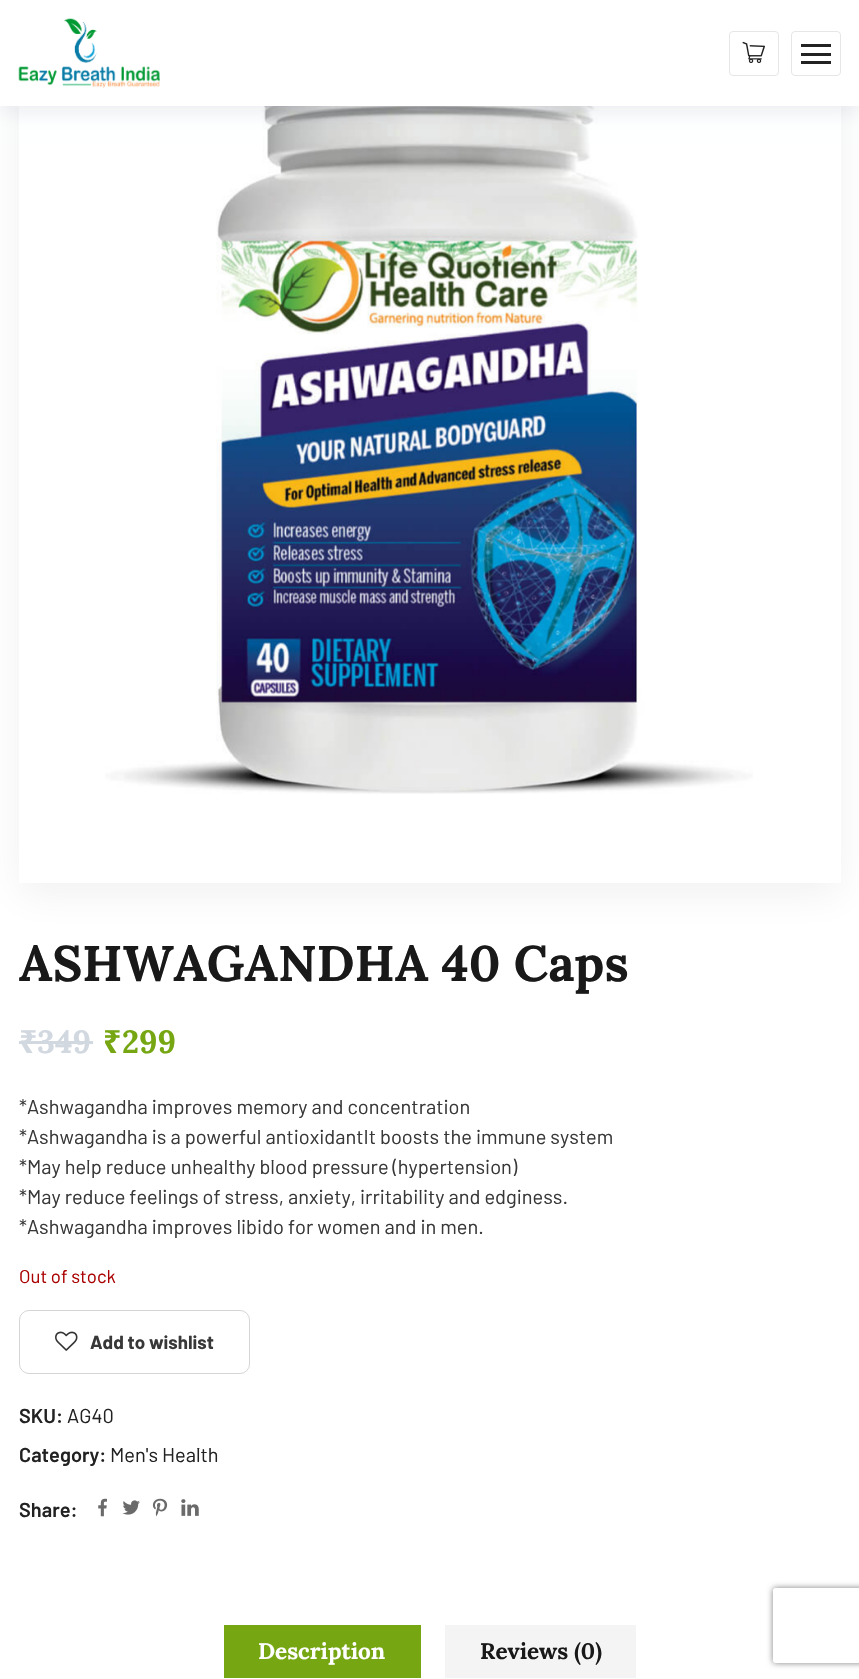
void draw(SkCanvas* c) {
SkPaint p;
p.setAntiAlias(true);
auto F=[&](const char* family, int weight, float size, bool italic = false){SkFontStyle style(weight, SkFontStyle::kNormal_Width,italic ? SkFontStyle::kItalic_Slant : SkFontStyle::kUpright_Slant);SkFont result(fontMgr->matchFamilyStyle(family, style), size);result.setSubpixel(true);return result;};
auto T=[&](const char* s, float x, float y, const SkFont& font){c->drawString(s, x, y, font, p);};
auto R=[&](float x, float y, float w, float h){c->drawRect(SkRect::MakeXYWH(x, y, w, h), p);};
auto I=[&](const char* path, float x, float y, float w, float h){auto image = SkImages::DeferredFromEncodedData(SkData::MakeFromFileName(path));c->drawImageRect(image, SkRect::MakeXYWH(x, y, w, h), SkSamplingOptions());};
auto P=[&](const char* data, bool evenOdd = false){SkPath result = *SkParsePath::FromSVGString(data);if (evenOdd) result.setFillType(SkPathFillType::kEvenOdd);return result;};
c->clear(0xffffffff);
c->save();
c->clipPath(P("M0 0h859v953h-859zm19-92h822v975h-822z",true),true);
p.setColor(0x0f191919);
p.setMaskFilter(SkMaskFilter::MakeBlur(kNormal_SkBlurStyle, 19));
c->drawRect(SkRect::MakeXYWH(19,-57,822,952),p);
p.setMaskFilter(nullptr);
c->restore();
I("3.png",105,106,648,688);
p.setColor(0x1702154e);
p.setMaskFilter(SkMaskFilter::MakeBlur(kNormal_SkBlurStyle, 11));
c->drawRect(SkRect::MakeXYWH(0,4,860,106),p);
p.setMaskFilter(nullptr);
p.setColor(0xffffffff);
R(0,0,859,106);
I("1.png",18,18,142,70);
p.setStroke(true);
p.setStrokeWidth(1);
p.setColor(0xffe6e6e6);
c->drawRoundRect(SkRect::MakeXYWH(729.5,31.5,49,44),3.5,3.5,p);
I("2.png",742,41,23,22);
c->drawRoundRect(SkRect::MakeXYWH(791.5,31.5,49,44),3.5,3.5,p);
p.setStroke(false);
p.setColor(0xff222222);
R(801,44,30,3);
R(801,53,30,3);
R(801,61,30,3);
auto f1 = F("Lora",700,50);
p.setColor(0xff191919);
T("ASHWAGANDHA 40 Caps",19,981,f1);
auto f2 = F("Noto Sans",700,32);
p.setColor(0xffd2d8e0);
T("₹",19,1053,f2);
auto f3 = F("Lora",700,32);
T("349",37,1053,f3);
R(19,1041,19,3);
R(38,1041,55,3);
p.setColor(0xff76a713);
T("₹",103,1053,f2);
T("299",122,1053,f3);
auto f4 = F("Barlow",400,20);
p.setColor(0xff383838);
T("*Ashwagandha improves memory and concentration",19,1114,f4);
T("*Ashwagandha is a powerful antioxidantIt boosts the immune system",19,1144,f4);
T("*May help reduce unhealthy blood pressure (hypertension)",19,1174,f4);
T("*May reduce feelings of stress, anxiety, irritability and edginess.",19,1204,f4);
T("*Ashwagandha improves libido for women and in men.",19,1234,f4);
auto f5 = F("Barlow",400,18.5);
p.setColor(0xffaa0000);
T("Out of stock",19,1283,f5);
p.setStroke(true);
p.setColor(0xffd5d5d5);
c->drawRoundRect(SkRect::MakeXYWH(19.5,1310.5,230,63),9.5,9.5,p);
I("4.png",55,1331,23,20);
auto f6 = F("Barlow",700,18.75);
p.setStroke(false);
p.setColor(0xff383838);
T("Add to wishlist",90,1349,f6);
auto f7 = F("Barlow",600,20);
p.setColor(0xff222222);
T("SKU:",19,1423,f7);
T("AG40",67,1423,f4);
T("Category:",19,1462,f7);
T("Men's Health",110,1462,f4);
T("Share:",19,1517,f7);
I("5.png",98,1498,9,19);
I("6.png",122,1500,18,15);
I("7.png",152,1498,16,19);
I("8.png",181,1499,18,17);
p.setColor(0xff76a713);
R(224,1625,197,53);
auto f8 = F("Lora",700,22.5);
p.setColor(0xffffffff);
T("Description",258,1659,f8);
p.setColor(0xfff4f4f4);
R(445,1625,191,53);
p.setColor(0xff191919);
T("Reviews (0)",480,1659,f8);
c->save();
c->clipPath(P("M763 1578h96v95h-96zm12.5 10h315c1.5 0 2.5 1 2.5 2.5v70c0 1.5-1 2.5-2.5 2.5h-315c-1.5 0-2.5-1-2.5-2.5v-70c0-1.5 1-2.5 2.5-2.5z",true),true);
p.setColor(0xff808080);
p.setMaskFilter(SkMaskFilter::MakeBlur(kNormal_SkBlurStyle, 3));
c->drawRoundRect(SkRect::MakeXYWH(773,1588,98,75),2.5,2.5,p);
p.setMaskFilter(nullptr);
c->restore();
}
